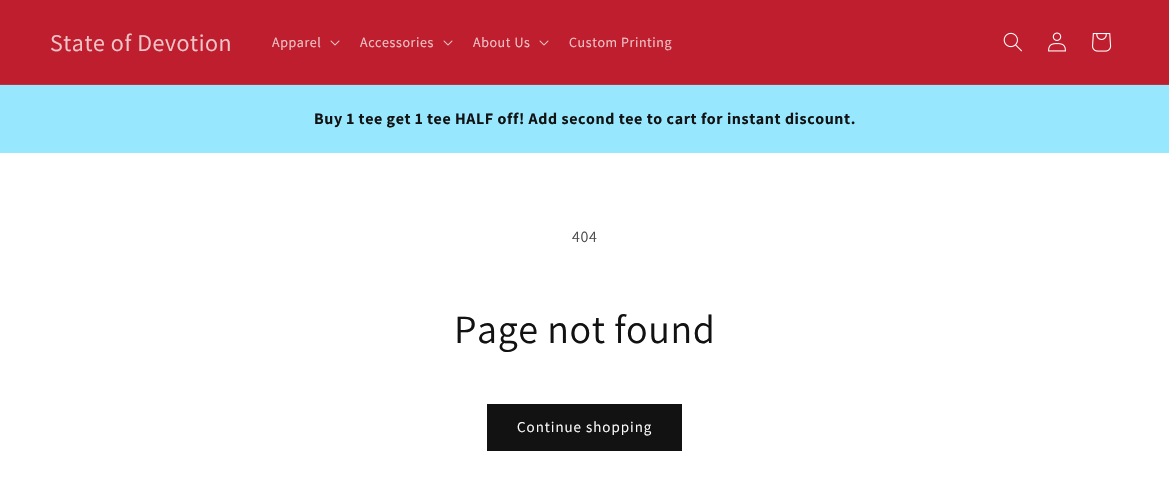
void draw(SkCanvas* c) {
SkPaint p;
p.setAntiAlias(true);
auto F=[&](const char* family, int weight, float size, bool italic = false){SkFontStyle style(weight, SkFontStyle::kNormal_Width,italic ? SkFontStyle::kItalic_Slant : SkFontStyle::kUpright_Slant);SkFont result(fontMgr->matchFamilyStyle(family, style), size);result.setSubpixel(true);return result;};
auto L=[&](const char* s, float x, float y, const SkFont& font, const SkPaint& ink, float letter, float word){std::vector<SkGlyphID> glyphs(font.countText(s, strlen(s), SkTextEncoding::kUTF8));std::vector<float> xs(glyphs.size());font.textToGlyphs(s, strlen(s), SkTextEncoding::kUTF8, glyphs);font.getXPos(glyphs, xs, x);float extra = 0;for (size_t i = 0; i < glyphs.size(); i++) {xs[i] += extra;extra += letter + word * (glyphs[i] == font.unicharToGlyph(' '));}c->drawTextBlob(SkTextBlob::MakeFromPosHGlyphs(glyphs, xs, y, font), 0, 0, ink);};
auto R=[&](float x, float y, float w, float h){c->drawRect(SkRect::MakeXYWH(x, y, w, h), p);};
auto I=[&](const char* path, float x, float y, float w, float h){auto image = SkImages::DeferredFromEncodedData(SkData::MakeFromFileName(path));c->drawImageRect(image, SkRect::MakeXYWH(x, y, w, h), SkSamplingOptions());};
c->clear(0xffffffff);
p.setColor(0xffbf1e2e);
R(0,0,1169,84);
p.setColor(0xffc4303f);
R(0,84,1169,1);
auto f1 = F("Assistant",400,24);
p.setColor(0xffefc7cb);
L("State of Devotion",50,51,f1,p,.6,0);
auto f2 = F("Assistant",400,14);
L("Apparel",272,47,f2,p,.6,0);
I("1.png",330,40,10,6);
L("Accessories",360,47,f2,p,.6,0);
I("1.png",443,40,10,6);
L("About Us",473,47,f2,p,.6,0);
I("1.png",539,40,10,6);
L("Custom Printing",569,47,f2,p,.6,0);
I("2.png",1003,32,19,20);
I("3.png",1048,32,18,20);
I("4.png",1092,33,20,19);
p.setColor(0xff97e8ff);
R(0,85,1169,68);
auto f3 = F("Assistant",700,16);
p.setColor(0xff121212);
L("Buy 1 tee get 1 tee HALF off! Add second tee to cart for instant discount.",314,124,f3,p,.6,0);
auto f4 = F("Assistant",400,16);
p.setColor(0xff4d4d4d);
L("404",572,242,f4,p,.6,0);
auto f5 = F("Assistant",400,40);
p.setColor(0xff121212);
L("Page not found",454,343,f5,p,.6,0);
R(487,404,195,47);
auto f6 = F("Assistant",400,15);
p.setColor(0xffffffff);
L("Continue shopping",517,432,f6,p,1,0);
}
